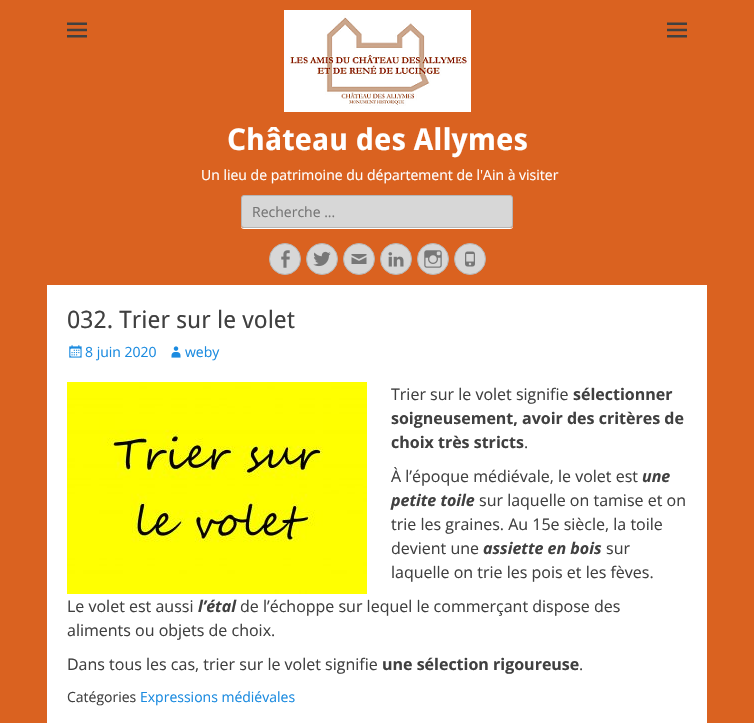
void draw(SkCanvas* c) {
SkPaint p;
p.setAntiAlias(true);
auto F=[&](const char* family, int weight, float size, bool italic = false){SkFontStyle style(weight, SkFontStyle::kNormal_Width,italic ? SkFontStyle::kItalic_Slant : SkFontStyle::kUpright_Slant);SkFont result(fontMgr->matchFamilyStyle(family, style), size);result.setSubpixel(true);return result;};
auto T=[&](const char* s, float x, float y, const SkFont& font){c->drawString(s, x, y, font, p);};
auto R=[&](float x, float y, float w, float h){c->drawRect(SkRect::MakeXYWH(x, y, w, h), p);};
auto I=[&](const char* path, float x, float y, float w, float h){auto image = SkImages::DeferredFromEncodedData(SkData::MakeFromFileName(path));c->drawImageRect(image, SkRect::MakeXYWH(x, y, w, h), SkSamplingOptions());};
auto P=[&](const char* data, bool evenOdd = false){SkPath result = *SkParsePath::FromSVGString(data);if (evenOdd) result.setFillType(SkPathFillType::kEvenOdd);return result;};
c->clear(0xffda6220);
I("1.png",67,22,20,16);
I("1.png",667,22,20,16);
I("2.png",284,10,187,102);
auto f1 = F("Droid Sans",700,30);
p.setColor(0xffffffff);
T("Château des Allymes",227,150,f1);
auto f2 = F("Open Sans",400,14);
T("Un lieu de patrimoine du département de l'Ain à visiter",201,180,f2);
c->drawPath(P("M241 225v1c0 2 1 3 3 3h266c2 0 3-1 3-3v-1c0 2-1 3-3 3h-266c-2 0-3-1-3-3z"),p);
p.setColor(0xffd7d7d7);
c->drawRoundRect(SkRect::MakeXYWH(241.5,195.5,271,32),2.5,2.5,p);
p.setStroke(true);
p.setStrokeWidth(1);
p.setColor(0xffb6b6b6);
c->drawRoundRect(SkRect::MakeXYWH(241.5,195.5,271,32),2.5,2.5,p);
p.setStroke(false);
p.setColor(0xff757575);
T("Recherche ...",252,217,f2);
p.setColor(0xffd7d7d7);
c->drawCircle(285,259,15.5,p);
p.setStroke(true);
p.setColor(0xffb6b6b6);
c->drawCircle(285,259,15.5,p);
I("3.png",281,250,9,18);
p.setStroke(false);
p.setColor(0xffd7d7d7);
c->drawCircle(322,259,15.5,p);
p.setStroke(true);
p.setColor(0xffb6b6b6);
c->drawCircle(322,259,15.5,p);
I("4.png",313,251,18,16);
p.setStroke(false);
p.setColor(0xffd7d7d7);
c->drawCircle(359,259,15.5,p);
p.setStroke(true);
p.setColor(0xffb6b6b6);
c->drawCircle(359,259,15.5,p);
I("5.png",351,254,16,10);
p.setStroke(false);
p.setColor(0xffd7d7d7);
c->drawCircle(396,259,15.5,p);
p.setStroke(true);
p.setColor(0xffb6b6b6);
c->drawCircle(396,259,15.5,p);
I("6.png",388,252,16,15);
p.setStroke(false);
p.setColor(0xffd7d7d7);
c->drawCircle(433,259,15.5,p);
p.setStroke(true);
p.setColor(0xffb6b6b6);
c->drawCircle(433,259,15.5,p);
I("7.png",424,250,18,18);
p.setStroke(false);
p.setColor(0xffd7d7d7);
c->drawCircle(470,259,15.5,p);
p.setStroke(true);
p.setColor(0xffb6b6b6);
c->drawCircle(470,259,15.5,p);
I("8.png",465,251,10,16);
p.setStroke(false);
p.setColor(0xffffffff);
R(47,285,660,438);
auto f3 = F("Droid Sans",400,24);
p.setColor(0xff404040);
T("032. Trier sur le volet",67,328,f3);
I("9.png",69,345,13,13);
p.setColor(0xff1b8be0);
T("8 juin 2020",85,357,f2);
I("10.png",171,346,10,12);
T("weby",185,357,f2);
I("11.png",67,382,300,212);
auto f4 = F("Open Sans",400,16);
p.setColor(0xff404040);
T("Trier sur le volet signifie",391,400,f4);
auto f5 = F("Open Sans",700,16);
T("sélectionner",573,400,f5);
T("soigneusement, avoir des critères de",391,424,f5);
T("choix très stricts",391,448,f5);
T(".",524,448,f4);
T("À l’époque médiévale, le volet est",391,482,f4);
auto f6 = F("Open Sans",700,16,true);
T("une",642,482,f6);
T("petite toile",391,506,f6);
T("sur laquelle on tamise et on",479,506,f4);
T("trie les graines. Au 15e siècle, la toile",391,530,f4);
T("devient une",391,554,f4);
T("assiette en bois",483,554,f6);
T("sur",606,554,f4);
T("laquelle on trie les pois et les fèves.",391,578,f4);
T("Le volet est aussi",67,612,f4);
T("l’étal",198,612,f6);
T("de l’échoppe sur lequel le commerçant dispose des",240,612,f4);
T("aliments ou objets de choix.",67,636,f4);
T("Dans tous les cas, trier sur le volet signifie",67,670,f4);
T("une sélection rigoureuse",382,670,f5);
T(".",579,670,f4);
T("Catégories",67,702,f2);
p.setColor(0xff1b8be0);
T("Expressions médiévales",140,702,f2);
}
